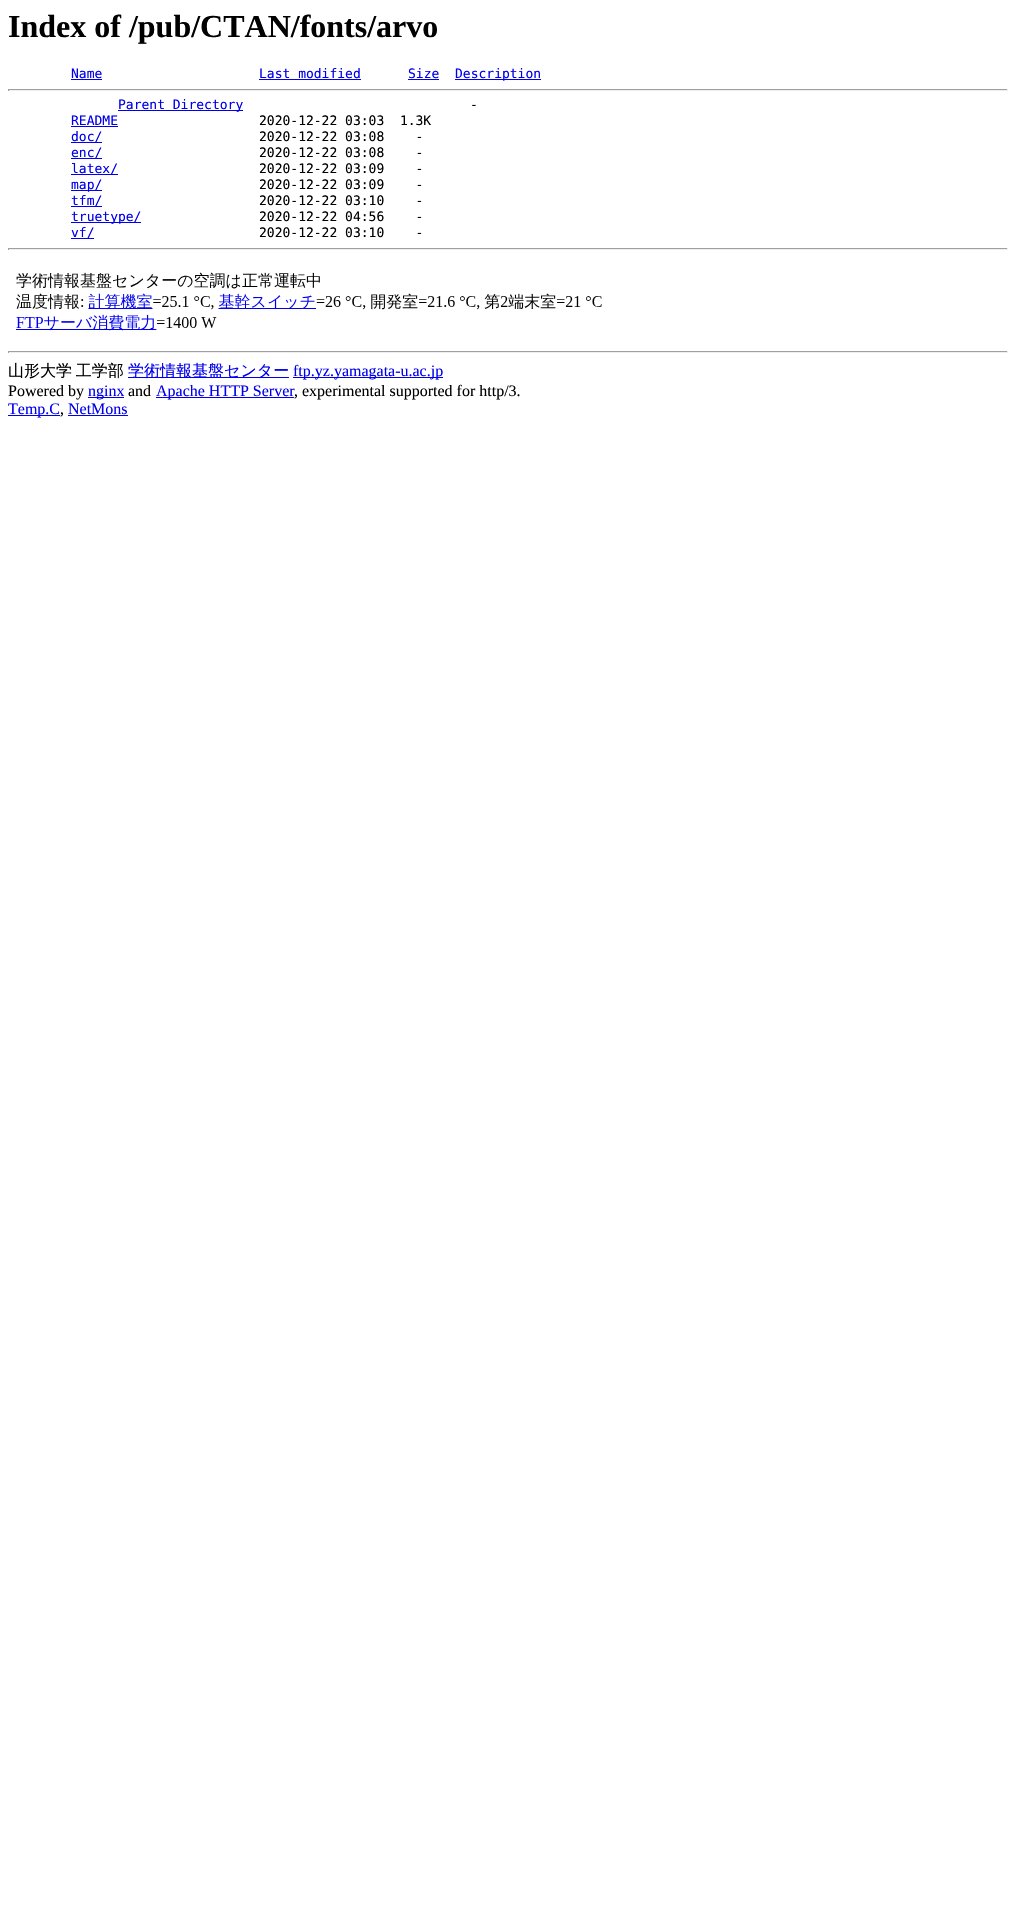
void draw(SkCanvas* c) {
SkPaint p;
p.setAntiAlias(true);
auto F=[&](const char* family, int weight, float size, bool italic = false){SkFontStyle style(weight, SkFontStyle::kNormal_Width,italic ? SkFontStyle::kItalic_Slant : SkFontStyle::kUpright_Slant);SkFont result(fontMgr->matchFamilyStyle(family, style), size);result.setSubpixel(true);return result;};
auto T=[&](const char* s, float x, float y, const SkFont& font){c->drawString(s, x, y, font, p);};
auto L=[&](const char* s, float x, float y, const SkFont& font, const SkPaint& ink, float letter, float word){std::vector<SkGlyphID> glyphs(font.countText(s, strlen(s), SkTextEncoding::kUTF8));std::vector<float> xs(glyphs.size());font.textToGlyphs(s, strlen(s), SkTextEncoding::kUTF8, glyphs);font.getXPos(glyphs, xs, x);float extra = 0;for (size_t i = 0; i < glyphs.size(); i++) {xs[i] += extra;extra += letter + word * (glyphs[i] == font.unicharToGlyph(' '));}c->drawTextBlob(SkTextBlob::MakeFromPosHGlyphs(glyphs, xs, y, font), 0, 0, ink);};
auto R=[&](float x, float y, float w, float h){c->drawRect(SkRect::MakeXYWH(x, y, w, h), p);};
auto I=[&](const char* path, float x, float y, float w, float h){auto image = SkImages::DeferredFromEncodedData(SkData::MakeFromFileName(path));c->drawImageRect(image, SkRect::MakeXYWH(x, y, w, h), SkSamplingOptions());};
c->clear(0xffffffff);
auto f1 = F("Liberation Serif",700,32);
p.setColor(0xff000000);
T("Index of /pub/CTAN/fonts/arvo",8,37,f1);
auto f2 = F("DejaVu Sans Mono",400,13);
p.setColor(0xff0000ee);
T("Name",71,78,f2);
R(71,79,31,1);
T("Last modified",259,78,f2);
R(259,79,102,1);
T("Size",408,78,f2);
R(408,79,31,1);
R(455,79,86,1);
T("Description",455,78,f2);
p.setColor(0xff9f9f9f);
R(8,89,1000,1);
p.setColor(0xffeeeeee);
R(1007,89,1,2);
R(8,90,1000,1);
p.setColor(0xff9f9f9f);
R(8,89,1,2);
p.setColor(0xff0000ee);
R(118,110,125,1);
T("Parent Directory",118,109,f2);
p.setColor(0xff000000);
T("-",470,109,f2);
p.setColor(0xff0000ee);
T("README",71,125,f2);
R(71,126,47,1);
p.setColor(0xff000000);
T("2020-12-22 03:03  1.3K",259,125,f2);
p.setColor(0xff0000ee);
R(71,142,31,1);
T("doc/",71,141,f2);
p.setColor(0xff000000);
T("2020-12-22 03:08    -",259,141,f2);
p.setColor(0xff0000ee);
R(71,158,31,1);
T("enc/",71,157,f2);
p.setColor(0xff000000);
T("2020-12-22 03:08    -",259,157,f2);
p.setColor(0xff0000ee);
R(71,174,47,1);
T("latex/",71,173,f2);
p.setColor(0xff000000);
T("2020-12-22 03:09    -",259,173,f2);
p.setColor(0xff0000ee);
R(71,190,31,1);
T("map/",71,189,f2);
p.setColor(0xff000000);
T("2020-12-22 03:09    -",259,189,f2);
p.setColor(0xff0000ee);
R(71,206,31,1);
T("tfm/",71,205,f2);
p.setColor(0xff000000);
T("2020-12-22 03:10    -",259,205,f2);
p.setColor(0xff0000ee);
R(71,222,70,1);
T("truetype/",71,221,f2);
p.setColor(0xff000000);
T("2020-12-22 04:56    -",259,221,f2);
p.setColor(0xff0000ee);
R(71,238,23,1);
T("vf/",71,237,f2);
p.setColor(0xff000000);
T("2020-12-22 03:10    -",259,237,f2);
p.setColor(0xff9f9f9f);
R(8,248,1000,1);
p.setColor(0xffeeeeee);
R(1007,248,1,2);
R(8,249,1000,1);
p.setColor(0xff9f9f9f);
R(8,248,1,2);
I("1.png",16,272,586,59);
R(8,351,1000,1);
p.setColor(0xffeeeeee);
R(1007,351,1,2);
R(8,352,1000,1);
p.setColor(0xff9f9f9f);
R(8,351,1,2);
auto f3 = F("WenQuanYi Zen Hei",500,16);
p.setColor(0xff000000);
L("山形大学 工学部",8,376,f3,p,0,-1);
p.setColor(0xff0000ee);
R(128,377,161,1);
T("学術情報基盤センター",128,376,f3);
R(293,377,150,1);
auto f4 = F("Liberation Serif",400,16);
T("ftp.yz.yamagata-u.ac.jp",293,376,f4);
p.setColor(0xff000000);
T("Powered by",8,396,f4);
p.setColor(0xff0000ee);
R(88,397,36,1);
T("nginx",88,396,f4);
p.setColor(0xff000000);
T("and",128,396,f4);
p.setColor(0xff0000ee);
R(156,397,138,1);
T("Apache HTTP Server",156,396,f4);
p.setColor(0xff000000);
T(", experimental supported for http/3.",294,396,f4);
p.setColor(0xff0000ee);
R(8,415,52,1);
T("Temp.C",8,414,f4);
p.setColor(0xff000000);
T(",",60,414,f4);
p.setColor(0xff0000ee);
T("NetMons",68,414,f4);
R(68,415,60,1);
}
